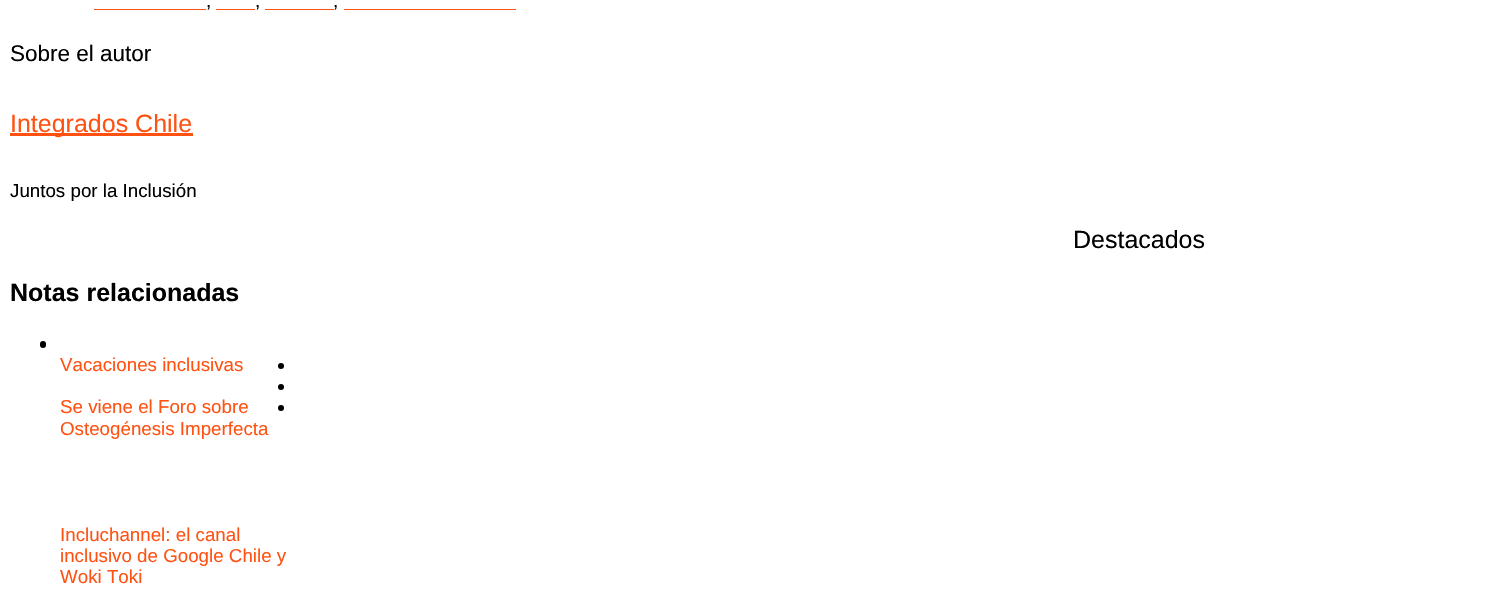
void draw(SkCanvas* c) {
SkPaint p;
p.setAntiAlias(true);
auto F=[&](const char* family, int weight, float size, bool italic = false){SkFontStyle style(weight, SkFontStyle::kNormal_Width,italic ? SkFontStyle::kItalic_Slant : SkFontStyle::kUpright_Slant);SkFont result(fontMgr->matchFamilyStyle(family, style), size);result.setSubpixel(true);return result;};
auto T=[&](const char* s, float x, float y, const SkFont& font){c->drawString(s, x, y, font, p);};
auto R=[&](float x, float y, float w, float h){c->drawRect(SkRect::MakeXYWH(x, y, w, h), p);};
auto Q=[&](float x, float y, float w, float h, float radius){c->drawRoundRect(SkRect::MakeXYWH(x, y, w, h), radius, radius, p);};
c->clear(0xffffffff);
p.setColor(0xffff5111);
R(94,9,112,1);
auto f1 = F("Liberation Sans",400,18.75);
p.setColor(0xff000000);
T(",",206,7,f1);
p.setColor(0xffff5111);
R(216,9,39,1);
p.setColor(0xff000000);
T(",",255,7,f1);
p.setColor(0xffff5111);
R(265,9,69,1);
p.setColor(0xff000000);
T(",",333,7,f1);
p.setColor(0xffff5111);
R(344,9,172,1);
auto f2 = F("Liberation Sans",400,22.5);
p.setColor(0xff000000);
T("Sobre el autor",10,61,f2);
p.setColor(0xffff5111);
R(10,133,183,3);
auto f3 = F("Liberation Sans",400,25);
T("Integrados Chile",10,132,f3);
p.setColor(0xff000000);
T("Juntos por la Inclusión",10,197,f1);
auto f4 = F("Liberation Sans",700,25);
T("Notas relacionadas",10,301,f4);
Q(40,341,6,7,3);
p.setColor(0xffff5111);
T("Vacaciones inclusivas",60,371,f1);
p.setColor(0xff000000);
c->drawCircle(281,366,3,p);
p.setColor(0xffff5111);
T("Se viene el Foro sobre",60,413,f1);
T("Osteogénesis Imperfecta",60,435,f1);
p.setColor(0xff000000);
c->drawCircle(281,408,3,p);
c->drawCircle(281,387,3,p);
p.setColor(0xffff5111);
T("Incluchannel: el canal",60,541,f1);
T("inclusivo de Google Chile y",60,562,f1);
T("Woki Toki",60,583,f1);
p.setColor(0xff000000);
T("Destacados",1073,248,f3);
}
